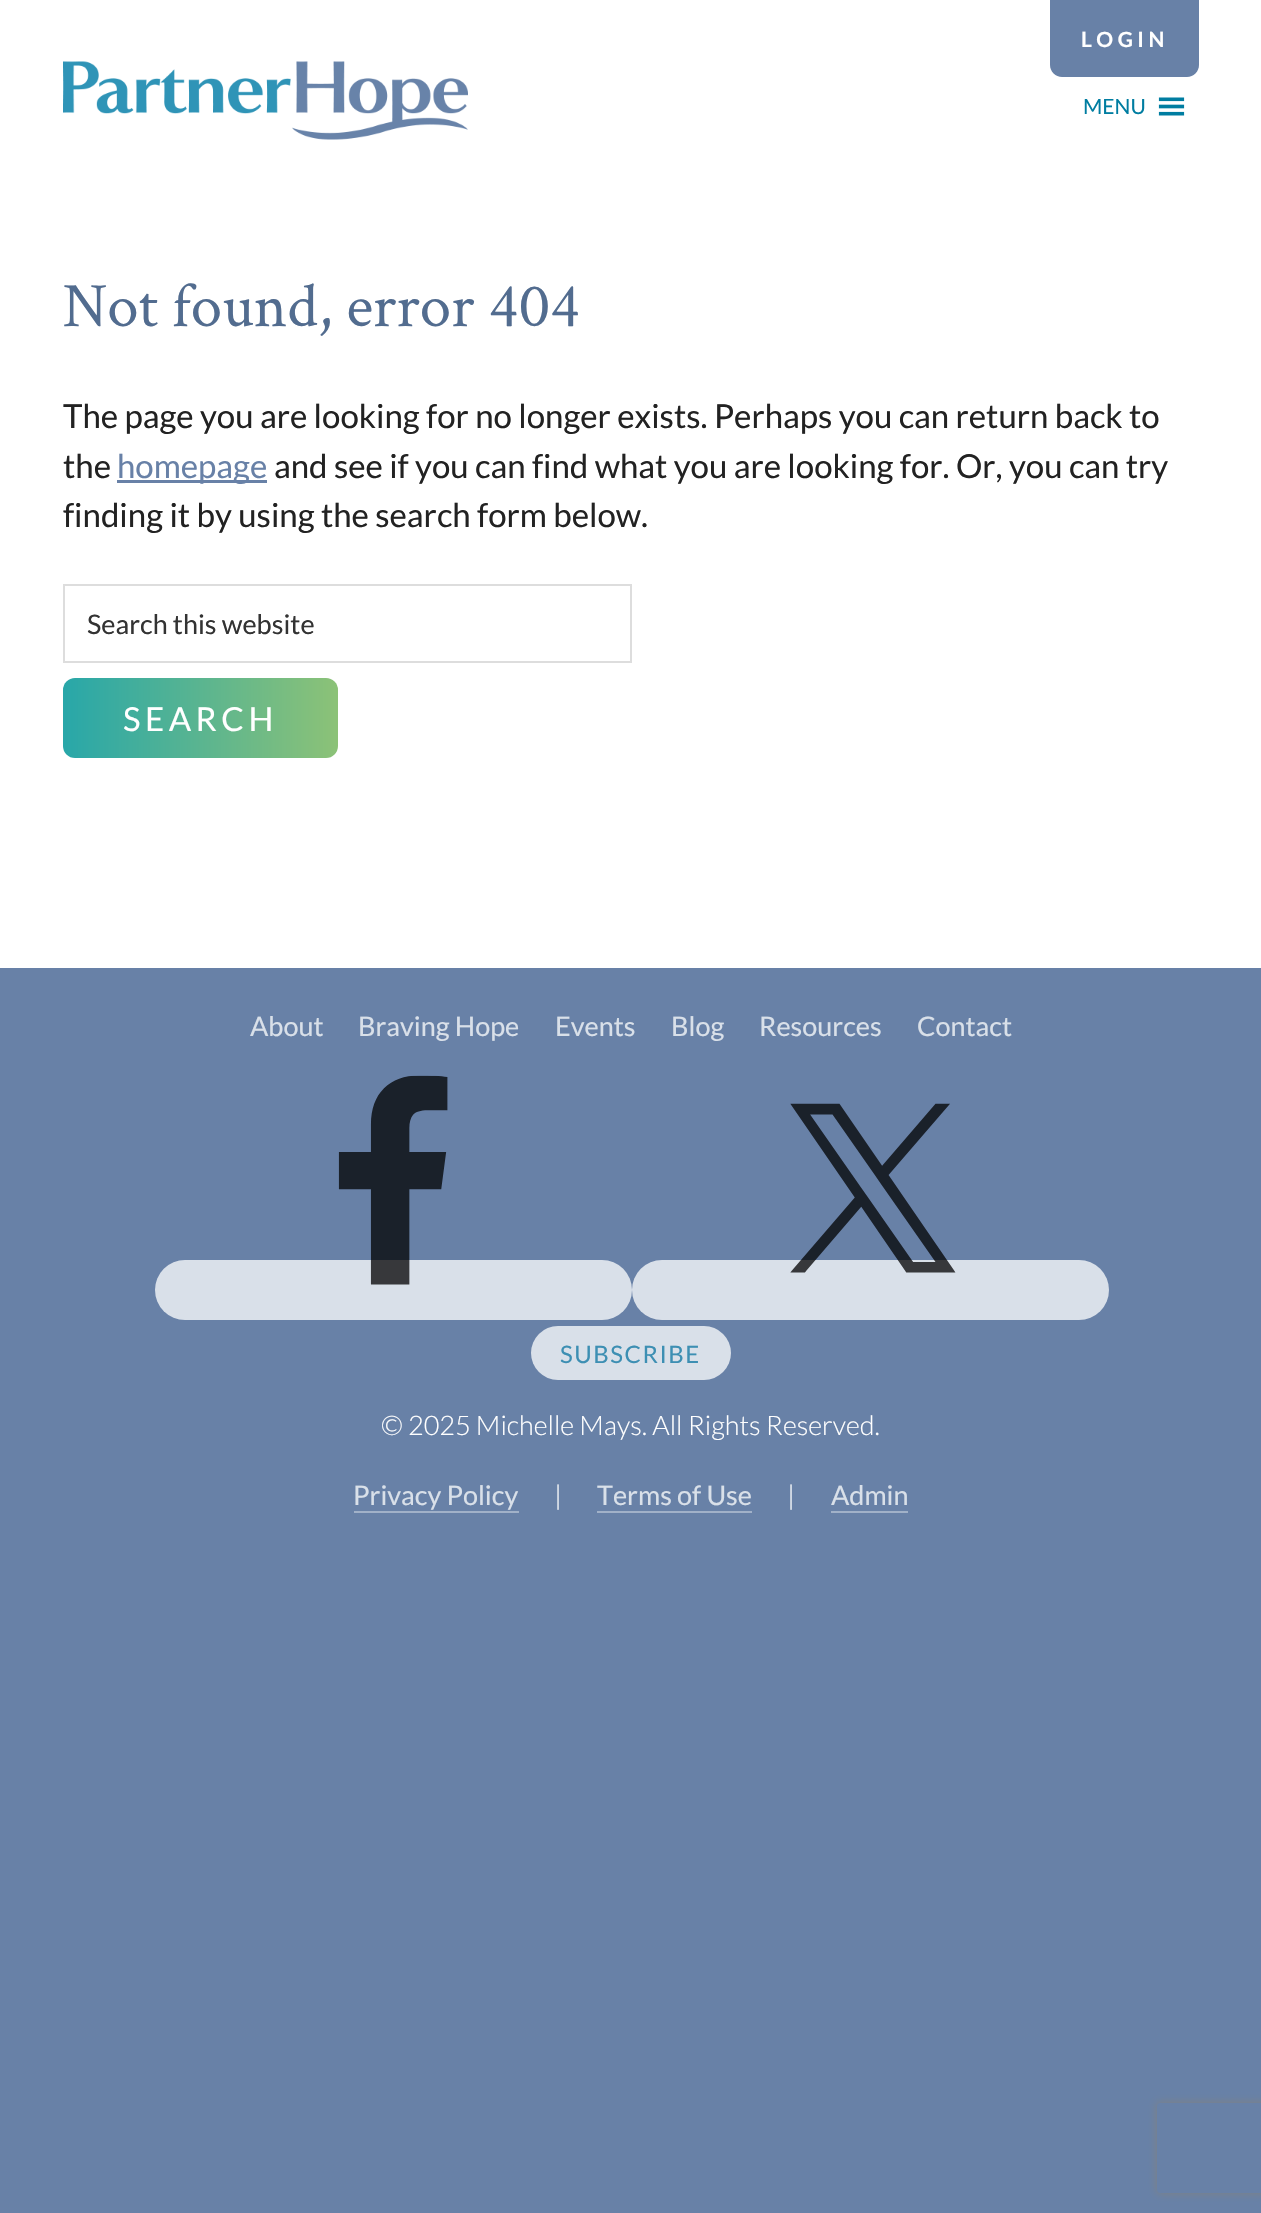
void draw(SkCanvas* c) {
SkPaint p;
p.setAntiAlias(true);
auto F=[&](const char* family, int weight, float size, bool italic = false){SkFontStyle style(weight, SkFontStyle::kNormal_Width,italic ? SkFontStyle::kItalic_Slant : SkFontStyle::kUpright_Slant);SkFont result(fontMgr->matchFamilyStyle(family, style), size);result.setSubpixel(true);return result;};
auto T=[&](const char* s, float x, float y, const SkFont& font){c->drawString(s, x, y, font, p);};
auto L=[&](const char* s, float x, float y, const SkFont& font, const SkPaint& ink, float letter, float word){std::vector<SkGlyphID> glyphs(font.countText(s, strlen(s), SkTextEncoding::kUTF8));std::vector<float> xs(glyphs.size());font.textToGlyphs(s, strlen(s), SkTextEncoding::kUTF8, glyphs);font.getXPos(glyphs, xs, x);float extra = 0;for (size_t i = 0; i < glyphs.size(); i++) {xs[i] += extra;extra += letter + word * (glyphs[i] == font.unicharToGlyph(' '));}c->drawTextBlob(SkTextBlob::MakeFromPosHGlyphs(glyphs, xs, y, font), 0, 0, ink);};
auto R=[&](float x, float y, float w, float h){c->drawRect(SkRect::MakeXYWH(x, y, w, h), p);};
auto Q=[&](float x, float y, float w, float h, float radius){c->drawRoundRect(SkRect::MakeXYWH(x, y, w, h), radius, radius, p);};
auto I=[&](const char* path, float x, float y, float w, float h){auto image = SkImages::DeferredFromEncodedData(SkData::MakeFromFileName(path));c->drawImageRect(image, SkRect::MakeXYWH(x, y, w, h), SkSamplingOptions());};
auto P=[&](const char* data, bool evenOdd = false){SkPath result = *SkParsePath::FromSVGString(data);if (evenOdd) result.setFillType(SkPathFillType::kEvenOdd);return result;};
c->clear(0xff6881a7);
p.setColor(0xffffffff);
R(0,0,1261,968);
p.setColor(0xff6881a7);
c->drawPath(P("M1050 0h149v65c0 6.5-5.5 12-12 12h-125c-6.5 0-12-5.5-12-12z"),p);
auto f1 = F("Lato",700,21);
p.setColor(0xffffffff);
L("LOGIN",1081,47,f1,p,4.5,0);
I("1.png",63,61,405,79);
auto f2 = F("Lato",400,21);
p.setColor(0xff007da1);
T("MENU",1083,114,f2);
I("2.png",1158,97,27,19);
auto f3 = F("Crimson Text",400,63);
p.setColor(0xff526c8f);
T("Not found, error 404",63,326,f3);
auto f4 = F("Lato",400,33);
p.setColor(0xff222222);
T("The page you are looking for no longer exists. Perhaps you can return back to",63,428,f4);
T("the",63,478,f4);
p.setColor(0xff6881a7);
R(117,480,150,3);
T("homepage",117,478,f4);
p.setColor(0xff222222);
T("and see if you can find what you are looking for. Or, you can try",274,478,f4);
T("finding it by using the search form below.",63,527,f4);
p.setStroke(true);
p.setStrokeWidth(2);
p.setColor(0xffdddddd);
c->drawRect(SkRect::MakeXYWH(64,585,567,77),p);
auto f5 = F("Lato",400,27);
p.setStroke(false);
p.setColor(0xff333333);
T("Search this website",87,634,f5);
{
const SkColor colors[] = {0xff28a7a9,0xff8cc277};
const float stops[] = {0,1};
const SkPoint ends[] = {{63,718}, {338,718}};
p.setShader(SkGradientShader::MakeLinear(ends, colors, stops, 2, SkTileMode::kClamp));
p.setAlpha(255);
}
Q(63,678,275,80,12);
p.setShader(nullptr);
p.setColor(0xffffffff);
L("SEARCH",123,731,f4,p,4.5,0);
p.setColor(0xffd9e0e9);
T("About",250,1036,f5);
T("Braving Hope",358,1036,f5);
T("Events",555,1036,f5);
T("Blog",671,1036,f5);
T("Resources",759,1036,f5);
T("Contact",917,1036,f5);
Q(155,1260,477,60,30);
I("3.png",338,1075,110,210);
Q(632,1260,477,60,30);
I("4.png",790,1103,166,170);
Q(531,1326,200,54,27);
auto f6 = F("Lato",400,24);
p.setColor(0xff3d8fb3);
L("SUBSCRIBE",560,1363,f6,p,1.5,0);
auto f7 = F("Lato",300,27);
p.setColor(0xffffffff);
T("© 2025 Michelle Mays. All Rights Reserved.",381,1435,f7);
p.setColor(0xffd9e0e9);
T("Privacy Policy",353,1505,f5);
p.setColor(0xffa1b1c8);
R(354,1511,165,2);
p.setColor(0xffffffff);
T("|",554,1505,f7);
p.setColor(0xffd9e0e9);
T("Terms of Use",597,1505,f5);
p.setColor(0xffa1b1c8);
R(597,1511,155,2);
p.setColor(0xffffffff);
T("|",787,1505,f7);
p.setColor(0xffd9e0e9);
T("Admin",831,1505,f5);
p.setColor(0xffa1b1c8);
R(831,1511,77,2);
c->save();
c->clipPath(P("M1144 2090h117v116h-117zm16 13h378c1.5 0 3 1.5 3 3v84c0 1.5-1.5 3-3 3h-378c-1.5 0-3-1.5-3-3v-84c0-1.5 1.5-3 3-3z",true),true);
p.setColor(0xff808080);
p.setMaskFilter(SkMaskFilter::MakeBlur(kNormal_SkBlurStyle, 4));
c->drawRoundRect(SkRect::MakeXYWH(1157,2103,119,90),3,3,p);
p.setMaskFilter(nullptr);
c->restore();
}
